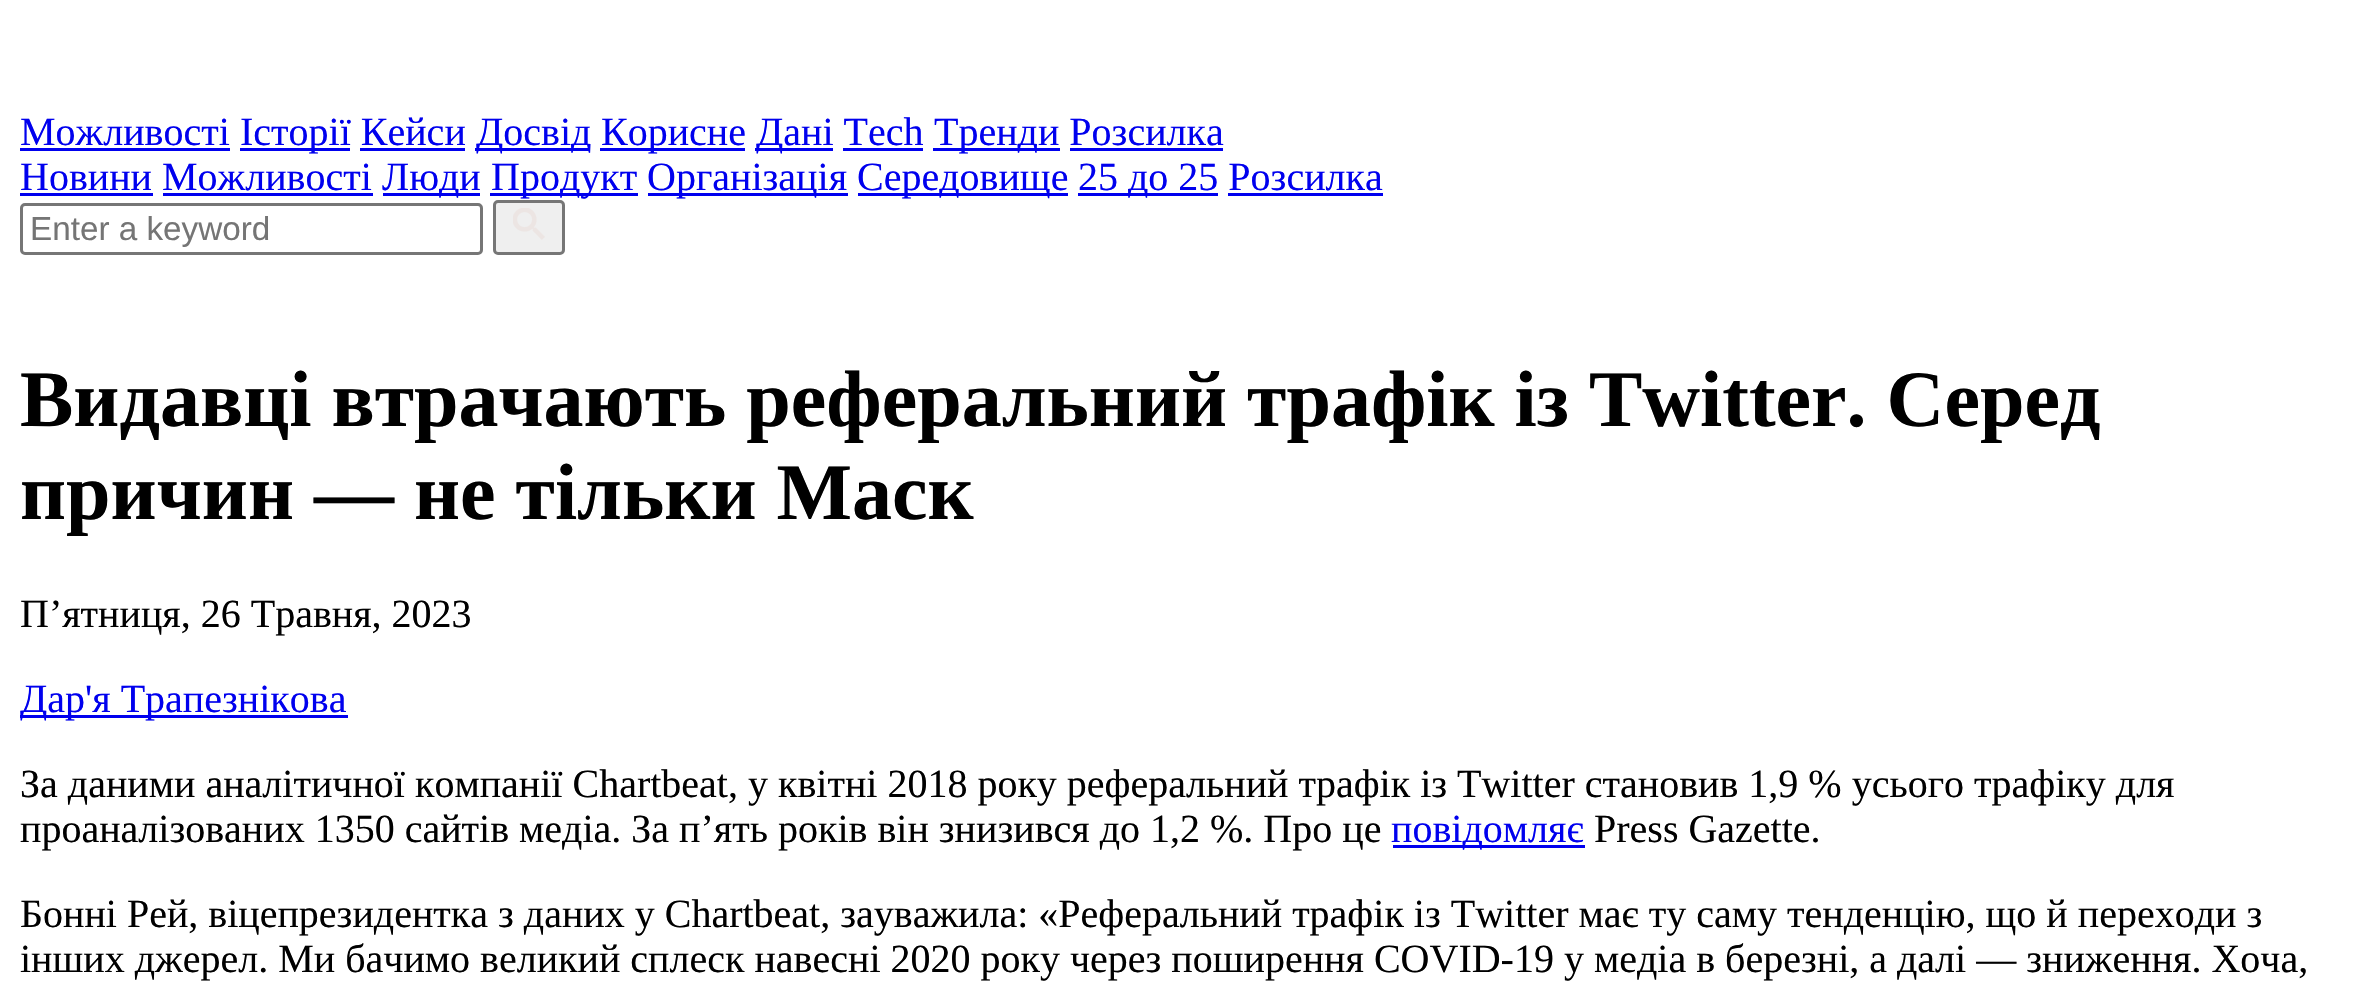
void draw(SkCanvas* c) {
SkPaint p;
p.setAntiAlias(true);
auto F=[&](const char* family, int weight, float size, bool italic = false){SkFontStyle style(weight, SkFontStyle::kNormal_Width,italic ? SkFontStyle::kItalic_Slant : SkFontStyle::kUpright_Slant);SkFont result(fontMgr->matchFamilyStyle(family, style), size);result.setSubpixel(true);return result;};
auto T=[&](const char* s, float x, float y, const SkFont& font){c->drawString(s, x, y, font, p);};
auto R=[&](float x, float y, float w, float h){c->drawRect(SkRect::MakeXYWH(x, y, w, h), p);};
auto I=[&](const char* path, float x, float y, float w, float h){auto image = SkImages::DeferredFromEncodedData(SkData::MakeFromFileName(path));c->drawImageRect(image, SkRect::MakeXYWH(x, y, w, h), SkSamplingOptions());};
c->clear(0xffffffff);
auto f1 = F("Liberation Serif",400,40);
p.setColor(0xff0000ee);
T("Можливості",20,145,f1);
R(20,148,210,3);
R(240,148,110,3);
T("Історії Кейси",240,145,f1);
R(475,148,115,3);
T("Досвід",476,145,f1);
R(600,148,145,3);
T("Корисне",601,145,f1);
R(755,148,78,3);
T("Дані Tech",756,145,f1);
R(933,148,127,3);
T("Тренди Розсилка",934,145,f1);
R(360,148,105,3);
R(843,148,80,3);
R(1070,148,153,3);
T("Новини Можливості",20,190,f1);
R(20,193,133,3);
R(383,193,97,3);
T("Люди",382,190,f1);
R(490,193,148,3);
T("Продукт",491,190,f1);
R(648,193,200,3);
T("Організація",647,190,f1);
R(858,193,210,3);
T("Середовище",857,190,f1);
R(1078,193,140,3);
T("25 до 25 Розсилка",1078,190,f1);
R(163,193,210,3);
R(1228,193,155,3);
p.setStroke(true);
p.setStrokeWidth(3);
p.setColor(0xff767676);
c->drawRoundRect(SkRect::MakeXYWH(21.5,204.5,460,49),3.5,3.5,p);
auto f2 = F("Liberation Sans",400,33.25);
p.setStroke(false);
p.setColor(0xff757575);
T("Enter a keyword",30,240,f2);
p.setColor(0xffefefef);
c->drawRoundRect(SkRect::MakeXYWH(494.5,201.5,69,52),3.5,3.5,p);
p.setStroke(true);
p.setColor(0xff767676);
c->drawRoundRect(SkRect::MakeXYWH(494.5,201.5,69,52),3.5,3.5,p);
I("1.png",513,208,32,32);
auto f3 = F("Liberation Serif",700,80);
p.setStroke(false);
p.setColor(0xff000000);
T("Видавці втрачають реферальний трафік із Twitter. Серед",20,426,f3);
T("причин — не тільки Маск",20,519,f3);
T("П’ятниця, 26 Травня, 2023",20,627,f1);
p.setColor(0xff0000ee);
R(20,715,328,3);
T("Дар'я Трапезнікова",20,712,f1);
p.setColor(0xff000000);
T("За даними аналітичної компанії Chartbeat, у квітні 2018 року реферальний трафік із Twitter становив 1,9 % усього трафіку для",20,797,f1);
T("проаналізованих 1350 сайтів медіа. За п’ять років він знизився до 1,2 %. Про це",20,842,f1);
p.setColor(0xff0000ee);
R(1393,845,192,3);
T("повідомляє",1391,842,f1);
p.setColor(0xff000000);
T("Press Gazette.",1594,842,f1);
T("Бонні Рей, віцепрезидентка з даних у Chartbeat, зауважила: «Реферальний трафік із Twitter має ту саму тенденцію, що й переходи з",20,927,f1);
T("інших джерел. Ми бачимо великий сплеск навесні 2020 року через поширення COVID-19 у медіа в березні, а далі — зниження. Хоча,",20,972,f1);
}
